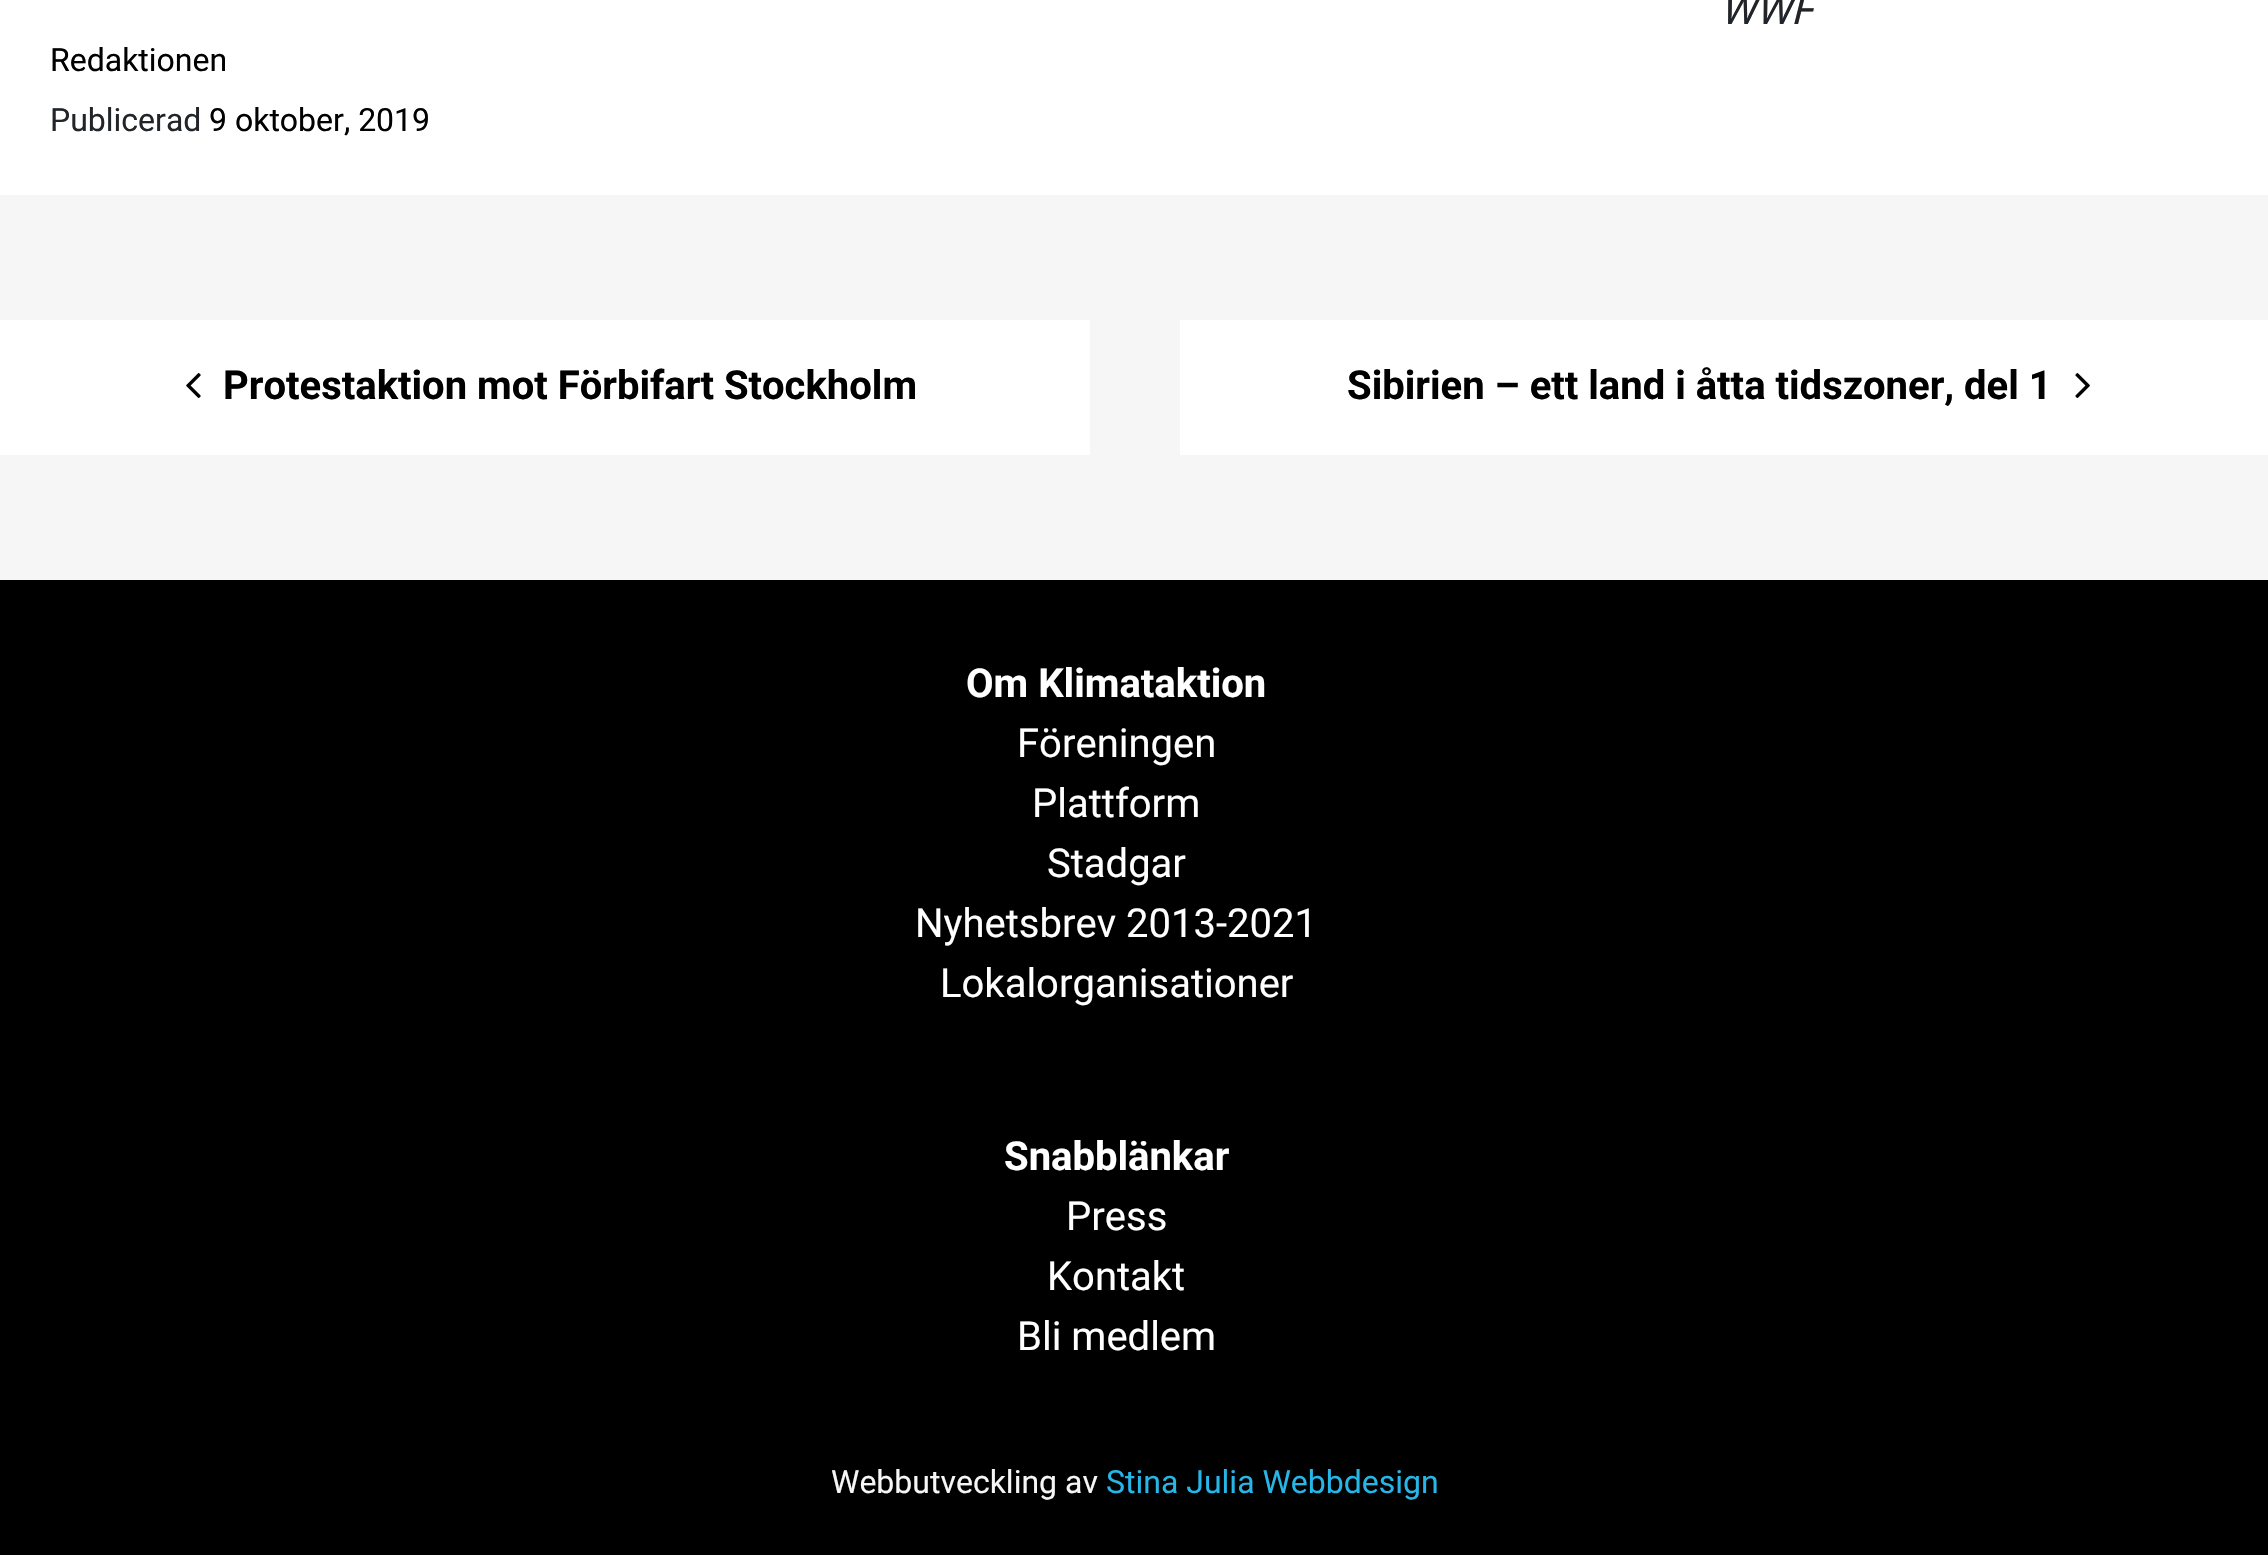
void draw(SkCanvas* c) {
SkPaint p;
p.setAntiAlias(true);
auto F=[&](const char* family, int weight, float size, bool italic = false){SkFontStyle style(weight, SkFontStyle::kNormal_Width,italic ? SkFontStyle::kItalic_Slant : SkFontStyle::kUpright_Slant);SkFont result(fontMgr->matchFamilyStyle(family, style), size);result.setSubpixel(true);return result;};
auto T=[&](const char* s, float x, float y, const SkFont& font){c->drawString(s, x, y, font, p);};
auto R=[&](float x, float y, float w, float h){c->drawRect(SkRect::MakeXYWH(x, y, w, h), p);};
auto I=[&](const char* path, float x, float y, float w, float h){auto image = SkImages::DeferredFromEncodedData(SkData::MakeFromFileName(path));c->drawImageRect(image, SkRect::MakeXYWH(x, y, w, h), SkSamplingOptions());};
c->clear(0xfff6f6f6);
p.setColor(0xffffffff);
R(0,0,2268,195);
auto f1 = F("Roboto",400,40,true);
p.setColor(0xff212529);
T("WWF",1720,24,f1);
auto f2 = F("Roboto",400,32);
p.setColor(0xff000000);
T("Redaktionen",50,71,f2);
p.setColor(0xff212529);
T("Publicerad",50,131,f2);
p.setColor(0xff000000);
T("9 oktober, 2019",209,131,f2);
p.setColor(0xffffffff);
R(0,320,1090,135);
I("1.png",186,373,15,25);
auto f3 = F("Roboto",700,40);
p.setColor(0xff000000);
T("Protestaktion mot Förbifart Stockholm",223,399,f3);
p.setColor(0xffffffff);
R(1180,320,1088,135);
p.setColor(0xff000000);
T("Sibirien – ett land i åtta tidszoner, del 1",1347,399,f3);
I("2.png",2075,373,15,25);
R(0,580,2268,975);
p.setColor(0xffffffff);
T("Om Klimataktion",966,697,f3);
auto f4 = F("Roboto",400,40);
T("Föreningen",1017,757,f4);
T("Plattform",1032,817,f4);
T("Stadgar",1047,877,f4);
T("Nyhetsbrev 2013-2021",915,937,f4);
T("Lokalorganisationer",940,997,f4);
T("Snabblänkar",1004,1170,f3);
T("Press",1066,1230,f4);
T("Kontakt",1047,1290,f4);
T("Bli medlem",1017,1350,f4);
p.setColor(0xfff6f6f6);
T("Webbutveckling av",831,1493,f2);
p.setColor(0xff26b6e8);
T("Stina Julia Webbdesign",1106,1493,f2);
}
